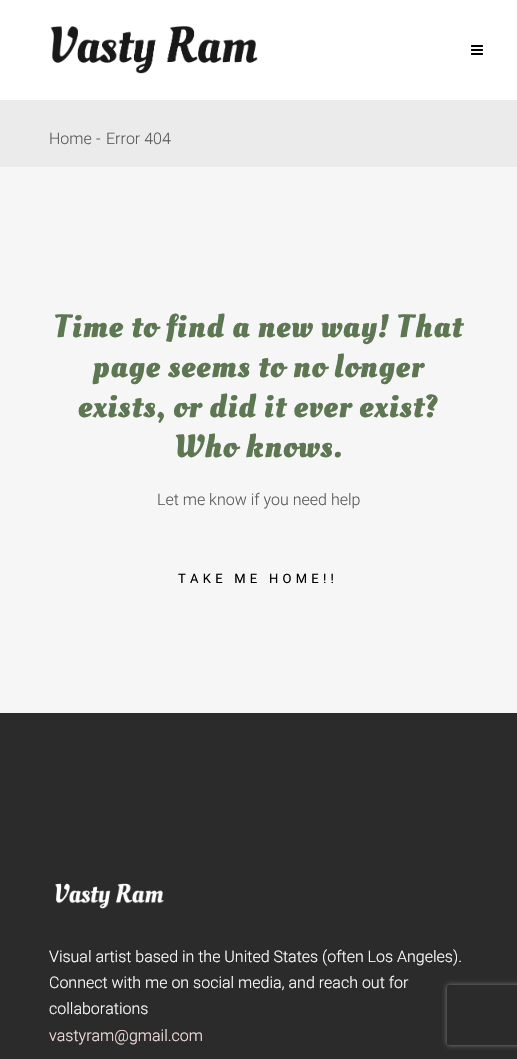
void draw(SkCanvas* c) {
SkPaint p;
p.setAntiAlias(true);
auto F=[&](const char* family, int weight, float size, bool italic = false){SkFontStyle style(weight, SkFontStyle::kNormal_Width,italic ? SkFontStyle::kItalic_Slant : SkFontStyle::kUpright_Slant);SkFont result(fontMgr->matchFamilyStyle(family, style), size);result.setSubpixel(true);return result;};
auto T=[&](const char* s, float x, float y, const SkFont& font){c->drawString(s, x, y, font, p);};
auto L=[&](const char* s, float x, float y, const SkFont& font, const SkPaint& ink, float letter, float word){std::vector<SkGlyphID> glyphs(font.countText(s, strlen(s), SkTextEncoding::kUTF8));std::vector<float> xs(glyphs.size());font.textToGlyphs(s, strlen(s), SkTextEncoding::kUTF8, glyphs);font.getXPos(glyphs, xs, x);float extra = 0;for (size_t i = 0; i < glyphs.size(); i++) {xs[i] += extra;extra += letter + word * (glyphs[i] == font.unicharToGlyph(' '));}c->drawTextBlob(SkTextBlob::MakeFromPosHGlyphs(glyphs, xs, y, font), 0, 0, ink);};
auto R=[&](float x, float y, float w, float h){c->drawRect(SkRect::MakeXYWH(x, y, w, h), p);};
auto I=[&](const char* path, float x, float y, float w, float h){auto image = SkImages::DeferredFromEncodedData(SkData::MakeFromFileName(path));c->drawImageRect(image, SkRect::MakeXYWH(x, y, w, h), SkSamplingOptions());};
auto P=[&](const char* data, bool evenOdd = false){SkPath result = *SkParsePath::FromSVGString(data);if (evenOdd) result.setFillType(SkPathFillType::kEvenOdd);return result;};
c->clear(0xfff6f6f6);
p.setColor(0xffffffff);
R(0,0,517,100);
I("1.png",50,26,208,48);
I("2.png",471,45,12,10);
p.setColor(0xffebebeb);
R(0,100,517,67);
auto f1 = F("Roboto",300,16);
p.setColor(0xff595959);
T("Home",49,144,f1);
T("-",96,144,f1);
T("Error 404",106,144,f1);
auto f2 = F("Oleo Script",700,32);
p.setColor(0xff5e7753);
L("Time to find a new way! That",54,337,f2,p,1,0);
L("page seems to no longer",93,377,f2,p,1,0);
L("exists, or did it ever exist?",78,417,f2,p,1,0);
L("Who knows.",174,457,f2,p,1,0);
p.setColor(0xff595959);
T("Let me know if you need help",157,505,f1);
auto f3 = F("Roboto",400,13);
p.setColor(0xff000000);
L("TAKE ME HOME!!",178,583,f3,p,4.25,0);
p.setColor(0xff2b2b2b);
R(0,713,517,346);
I("3.png",55,883,109,26);
p.setColor(0xffffffff);
T("Visual artist based in the United States (often Los Angeles).",49,962,f1);
T("Connect with me on social media, and reach out for",49,988,f1);
T("collaborations",49,1014,f1);
p.setColor(0xfff7e1e1);
T("vastyram@gmail.com",49,1041,f1);
c->save();
c->clipPath(P("M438 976h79v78h-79zm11 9h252c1 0 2 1 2 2v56c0 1-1 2-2 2h-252c-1 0-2-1-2-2v-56c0-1 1-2 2-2z",true),true);
p.setColor(0xff808080);
p.setMaskFilter(SkMaskFilter::MakeBlur(kNormal_SkBlurStyle, 2.5));
c->drawRoundRect(SkRect::MakeXYWH(447,985,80,60),2,2,p);
p.setMaskFilter(nullptr);
c->restore();
}
